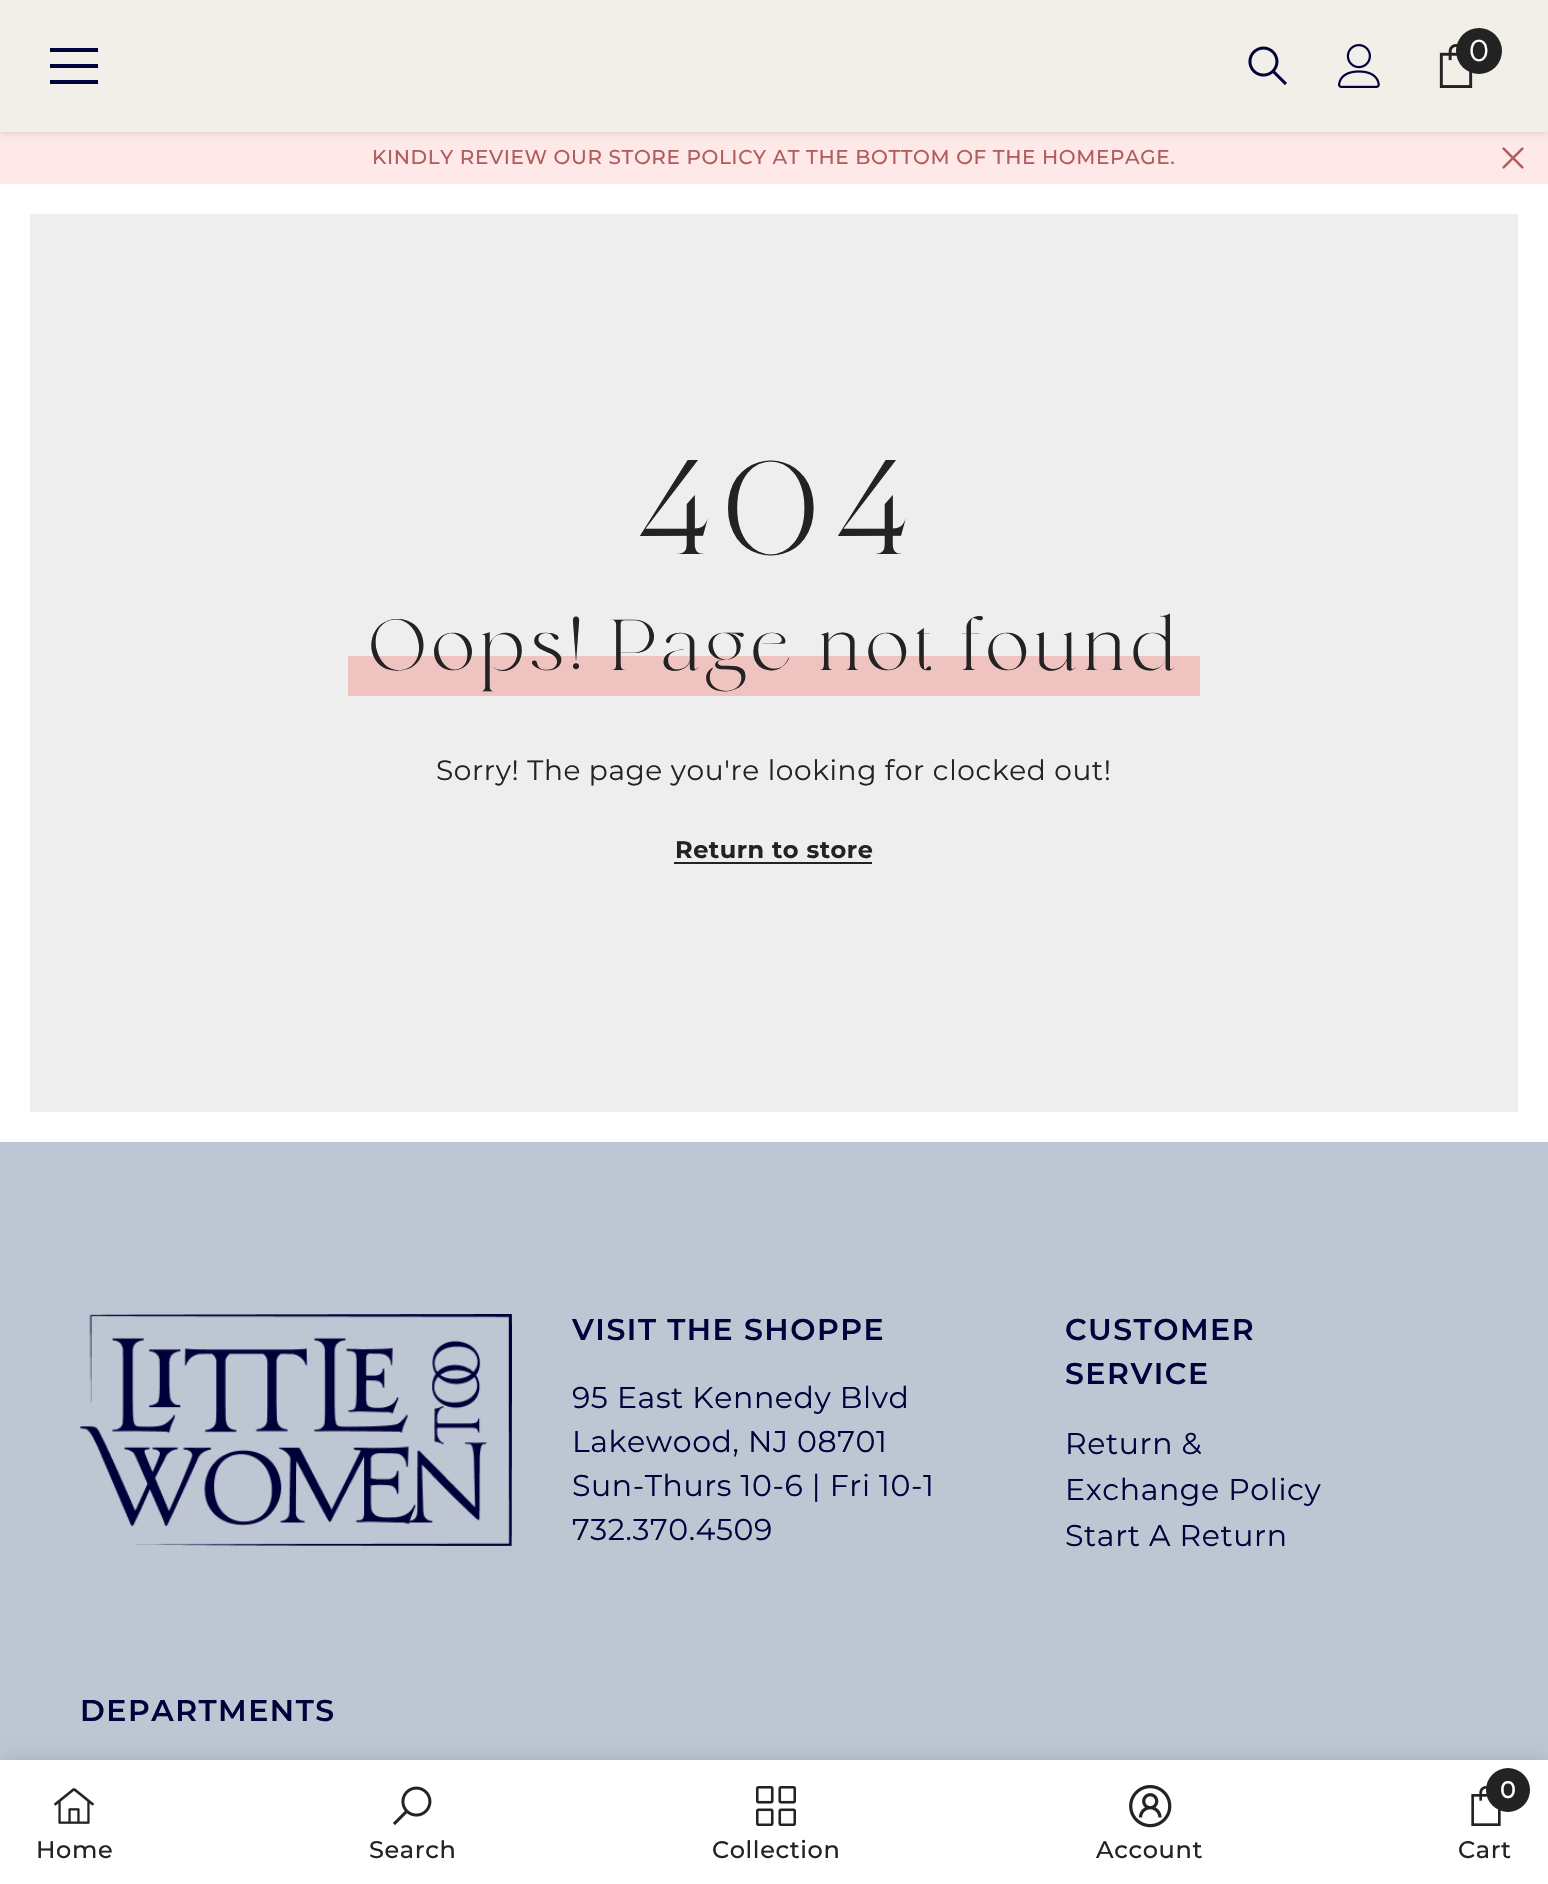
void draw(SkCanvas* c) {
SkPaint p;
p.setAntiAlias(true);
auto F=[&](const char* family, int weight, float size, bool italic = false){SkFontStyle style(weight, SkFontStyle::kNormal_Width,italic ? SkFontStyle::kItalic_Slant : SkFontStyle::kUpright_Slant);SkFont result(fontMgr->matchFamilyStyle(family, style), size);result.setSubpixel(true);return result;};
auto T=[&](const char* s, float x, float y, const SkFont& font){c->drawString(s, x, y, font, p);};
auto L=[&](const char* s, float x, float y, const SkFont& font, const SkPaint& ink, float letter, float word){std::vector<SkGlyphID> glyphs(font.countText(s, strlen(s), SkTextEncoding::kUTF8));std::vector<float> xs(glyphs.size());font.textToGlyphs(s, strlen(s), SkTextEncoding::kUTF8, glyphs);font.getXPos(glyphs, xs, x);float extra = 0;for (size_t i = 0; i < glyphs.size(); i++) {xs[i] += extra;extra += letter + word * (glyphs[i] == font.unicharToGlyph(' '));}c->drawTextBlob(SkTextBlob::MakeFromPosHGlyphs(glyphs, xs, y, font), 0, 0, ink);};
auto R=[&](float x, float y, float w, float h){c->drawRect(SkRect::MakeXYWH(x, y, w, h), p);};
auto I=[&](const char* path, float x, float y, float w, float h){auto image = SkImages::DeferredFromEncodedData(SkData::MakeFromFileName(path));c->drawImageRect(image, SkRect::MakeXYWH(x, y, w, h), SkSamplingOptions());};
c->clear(0xffffffff);
p.setColor(0xffffe8e8);
R(0,132,1548,52);
p.setColor(0x1a000000);
p.setMaskFilter(SkMaskFilter::MakeBlur(kNormal_SkBlurStyle, 3));
c->drawRect(SkRect::MakeXYWH(0,2,1548,132),p);
p.setMaskFilter(nullptr);
p.setColor(0xfff2efe8);
R(0,0,1548,132);
p.setColor(0xff00023b);
R(50,64,48,4);
R(50,48,48,4);
R(50,80,48,4);
I("1.png",1248,46,39,39);
I("2.png",1338,44,42,44);
I("3.png",1439,44,34,44);
p.setColor(0xff232323);
c->drawCircle(1479,51,23,p);
auto f1 = F("Montserrat",400,30);
p.setColor(0xffffffff);
T("0",1469,61,f1);
auto f2 = F("Montserrat",500,20);
p.setColor(0xffb05d5d);
L("KINDLY REVIEW OUR STORE POLICY AT THE BOTTOM OF THE HOMEPAGE.",372,164,f2,p,.6,0);
I("4.png",1502,147,22,22);
p.setColor(0xffeeeeee);
R(30,214,1488,898);
auto f3 = F("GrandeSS",400,132);
p.setColor(0xff232323);
L("404",630,554,f3,p,6.5,0);
p.setColor(0xffefc3c0);
R(348,656,852,40);
auto f4 = F("GrandeSS",400,72);
p.setColor(0xff232323);
L("Oops! Page not found",368,670,f4,p,3.6,0);
auto f5 = F("Montserrat",400,28);
L("Sorry! The page you're looking for clocked out!",436,780,f5,p,.6,0);
auto f6 = F("Montserrat",700,24);
L("Return to store",675,858,f6,p,.5,0);
R(674,862,198,2);
p.setColor(0xffbdc6d2);
R(0,1142,1548,618);
I("5.png",80,1314,432,232);
auto f7 = F("Montserrat",600,30);
p.setColor(0xff00023b);
L("VISIT THE SHOPPE",572,1340,f7,p,1.5,0);
L("95 East Kennedy Blvd",572,1408,f1,p,.6,0);
L("Lakewood, NJ 08701",572,1452,f1,p,.6,0);
L("Sun-Thurs 10-6 | Fri 10-1",572,1496,f1,p,.6,0);
L("732.370.4509",572,1540,f1,p,.6,0);
L("CUSTOMER",1065,1340,f7,p,1.5,0);
L("SERVICE",1065,1384,f7,p,1.5,0);
L("Return &",1065,1454,f1,p,.6,0);
L("Exchange Policy",1065,1500,f1,p,.6,0);
L("Start A Return",1065,1546,f1,p,.6,0);
L("DEPARTMENTS",80,1721,f7,p,1.5,0);
p.setColor(0x1f000000);
p.setMaskFilter(SkMaskFilter::MakeBlur(kNormal_SkBlurStyle, 9));
c->drawRect(SkRect::MakeXYWH(0,1760,1548,124),p);
p.setMaskFilter(nullptr);
p.setColor(0xffffffff);
R(0,1760,1548,124);
I("6.png",54,1788,40,36);
auto f8 = F("Montserrat",500,24);
p.setColor(0xff232323);
L("Home",36,1858,f8,p,.6,0);
I("7.png",393,1786,39,39);
L("Search",369,1858,f8,p,.6,0);
I("8.png",756,1786,40,40);
L("Collection",712,1858,f8,p,.6,0);
I("9.png",1129,1785,43,43);
L("Account",1096,1858,f8,p,.6,0);
I("10.png",1471,1786,30,40);
c->drawCircle(1508,1790,22,p);
p.setColor(0xffffffff);
T("0",1500,1798,f8);
p.setColor(0xff232323);
L("Cart",1458,1858,f8,p,.6,0);
}
